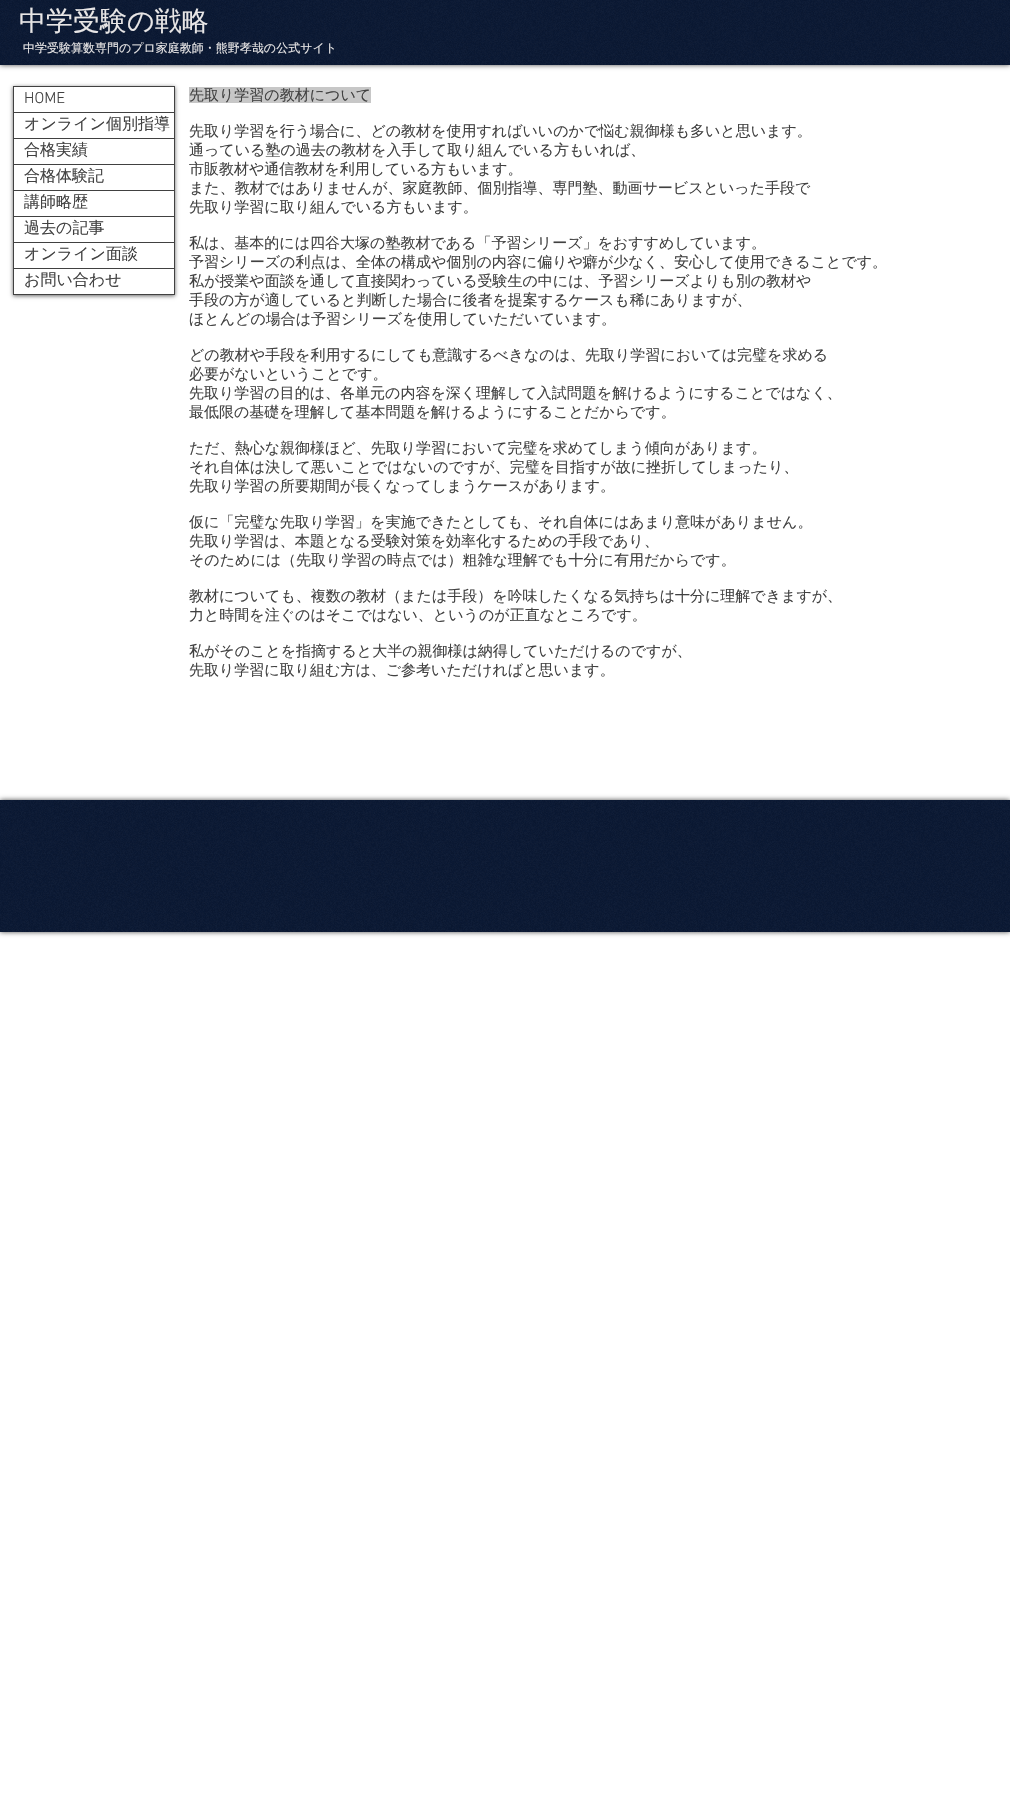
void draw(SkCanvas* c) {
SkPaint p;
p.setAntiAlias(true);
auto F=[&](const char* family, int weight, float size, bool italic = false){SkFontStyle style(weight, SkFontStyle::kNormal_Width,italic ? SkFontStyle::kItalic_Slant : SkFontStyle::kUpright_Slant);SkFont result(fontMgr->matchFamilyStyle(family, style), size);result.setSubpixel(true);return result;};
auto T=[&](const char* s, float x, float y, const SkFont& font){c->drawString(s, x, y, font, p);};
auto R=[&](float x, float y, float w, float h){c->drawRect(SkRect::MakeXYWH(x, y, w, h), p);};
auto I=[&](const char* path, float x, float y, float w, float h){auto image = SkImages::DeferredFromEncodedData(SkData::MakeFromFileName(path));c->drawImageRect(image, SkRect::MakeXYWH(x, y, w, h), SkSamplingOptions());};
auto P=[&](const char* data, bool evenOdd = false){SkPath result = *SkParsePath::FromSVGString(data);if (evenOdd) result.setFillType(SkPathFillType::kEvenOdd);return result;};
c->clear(0xffffffff);
p.setColor(0xb3000000);
p.setMaskFilter(SkMaskFilter::MakeBlur(kNormal_SkBlurStyle, 2.5));
c->drawRect(SkRect::MakeXYWH(0,0,1010,65),p);
p.setMaskFilter(nullptr);
p.setColor(0xff0a1833);
R(0,0,1010,65);
I("1.png",0,0,1010,65);
auto f1 = F("WenQuanYi Zen Hei",500,27);
p.setColor(0xffe8e6e6);
T("中学受験の戦略",19,30,f1);
auto f2 = F("WenQuanYi Zen Hei",500,12);
T("中学受験算数専門のプロ家庭教師・熊野孝哉の公式サイト",23,52,f2);
c->save();
c->clipPath(P("M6 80h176v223h-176zm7 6h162v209h-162z",true),true);
p.setColor(0x99000000);
p.setMaskFilter(SkMaskFilter::MakeBlur(kNormal_SkBlurStyle, 2));
c->drawRect(SkRect::MakeXYWH(13,87,162,209),p);
p.setMaskFilter(nullptr);
c->restore();
p.setStroke(true);
p.setStrokeWidth(1);
p.setColor(0xff414141);
c->drawRect(SkRect::MakeXYWH(13.5,86.5,161,208),p);
p.setStroke(false);
R(14,112,160,1);
auto f3 = F("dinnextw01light",300,16);
T("HOME",24,103,f3);
R(14,138,160,1);
auto f4 = F("WenQuanYi Zen Hei",500,16);
T("オンライン個別指導",24,129,f4);
R(14,164,160,1);
T("合格実績",24,155,f4);
R(14,190,160,1);
T("合格体験記",24,181,f4);
R(14,216,160,1);
T("講師略歴",24,207,f4);
R(14,242,160,1);
T("過去の記事",24,233,f4);
R(14,268,160,1);
T("オンライン面談",24,259,f4);
T("お問い合わせ",24,285,f4);
p.setColor(0xffc7c7c7);
R(189,87,182,16);
auto f5 = F("WenQuanYi Zen Hei",500,15);
p.setColor(0xff414141);
T("先取り学習の教材について",189,100,f5);
T("先取り学習を行う場合に、どの教材を使用すればいいのかで悩む親御様も多いと思います。",189,136,f5);
T("通っている塾の過去の教材を入手して取り組んでいる方もいれば、",189,155,f5);
T("市販教材や通信教材を利用している方もいます。",189,174,f5);
T("また、教材ではありませんが、家庭教師、個別指導、専門塾、動画サービスといった手段で",189,193,f5);
T("先取り学習に取り組んでいる方もいます。",189,212,f5);
T("私は、基本的には四谷大塚の塾教材である「予習シリーズ」をおすすめしています。",189,248,f5);
T("予習シリーズの利点は、全体の構成や個別の内容に偏りや癖が少なく、安心して使用できることです。",189,267,f5);
T("私が授業や面談を通して直接関わっている受験生の中には、予習シリーズよりも別の教材や",189,286,f5);
T("手段の方が適していると判断した場合に後者を提案するケースも稀にありますが、",189,305,f5);
T("ほとんどの場合は予習シリーズを使用していただいています。",189,324,f5);
T("どの教材や手段を利用するにしても意識するべきなのは、先取り学習においては完璧を求める",189,360,f5);
T("必要がないということです。",189,379,f5);
T("先取り学習の目的は、各単元の内容を深く理解して入試問題を解けるようにすることではなく、",189,398,f5);
T("最低限の基礎を理解して基本問題を解けるようにすることだからです。",189,417,f5);
T("ただ、熱心な親御様ほど、先取り学習において完璧を求めてしまう傾向があります。",189,453,f5);
T("それ自体は決して悪いことではないのですが、完璧を目指すが故に挫折してしまったり、",189,472,f5);
T("先取り学習の所要期間が長くなってしまうケースがあります。",189,491,f5);
T("仮に「完璧な先取り学習」を実施できたとしても、それ自体にはあまり意味がありません。",189,527,f5);
T("先取り学習は、本題となる受験対策を効率化するための手段であり、",189,546,f5);
T("そのためには（先取り学習の時点では）粗雑な理解でも十分に有用だからです。",189,565,f5);
T("教材についても、複数の教材（または手段）を吟味したくなる気持ちは十分に理解できますが、",189,601,f5);
T("力と時間を注ぐのはそこではない、というのが正直なところです。",189,620,f5);
T("私がそのことを指摘すると大半の親御様は納得していただけるのですが、",189,656,f5);
T("先取り学習に取り組む方は、ご参考いただければと思います。",189,675,f5);
p.setColor(0xb3000000);
p.setMaskFilter(SkMaskFilter::MakeBlur(kNormal_SkBlurStyle, 2.5));
c->drawRect(SkRect::MakeXYWH(0,800,1010,132),p);
p.setMaskFilter(nullptr);
p.setColor(0xff0a1833);
R(0,800,1010,132);
I("2.png",0,800,1010,132);
}
